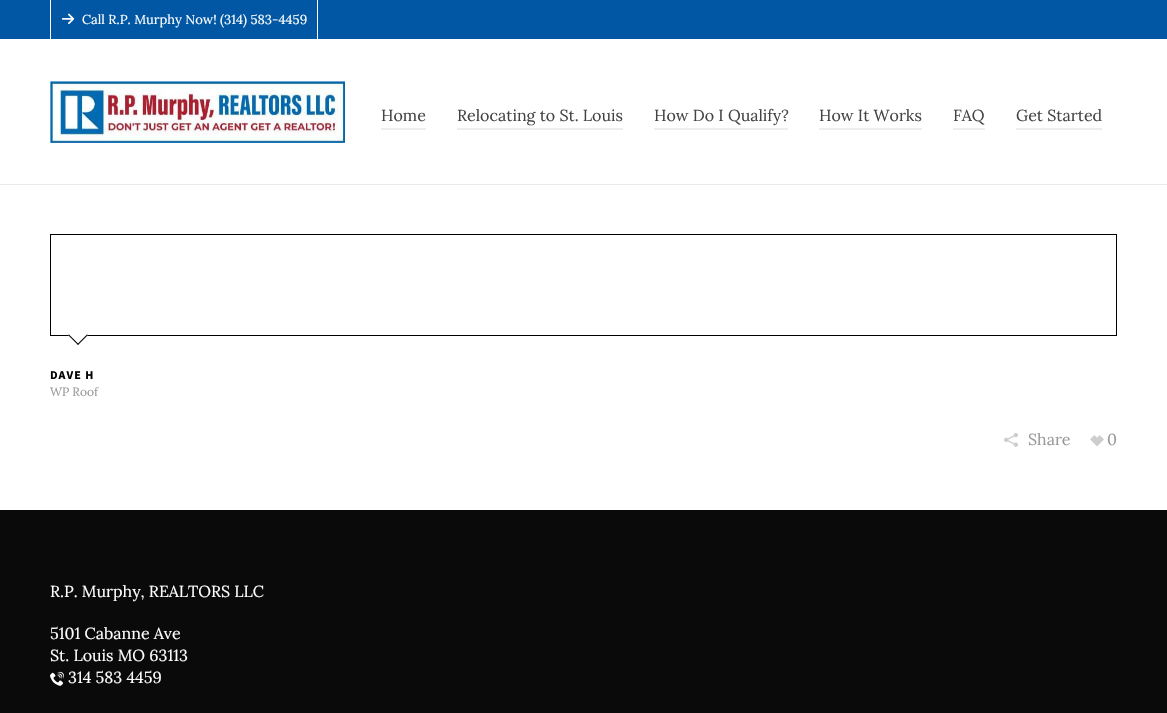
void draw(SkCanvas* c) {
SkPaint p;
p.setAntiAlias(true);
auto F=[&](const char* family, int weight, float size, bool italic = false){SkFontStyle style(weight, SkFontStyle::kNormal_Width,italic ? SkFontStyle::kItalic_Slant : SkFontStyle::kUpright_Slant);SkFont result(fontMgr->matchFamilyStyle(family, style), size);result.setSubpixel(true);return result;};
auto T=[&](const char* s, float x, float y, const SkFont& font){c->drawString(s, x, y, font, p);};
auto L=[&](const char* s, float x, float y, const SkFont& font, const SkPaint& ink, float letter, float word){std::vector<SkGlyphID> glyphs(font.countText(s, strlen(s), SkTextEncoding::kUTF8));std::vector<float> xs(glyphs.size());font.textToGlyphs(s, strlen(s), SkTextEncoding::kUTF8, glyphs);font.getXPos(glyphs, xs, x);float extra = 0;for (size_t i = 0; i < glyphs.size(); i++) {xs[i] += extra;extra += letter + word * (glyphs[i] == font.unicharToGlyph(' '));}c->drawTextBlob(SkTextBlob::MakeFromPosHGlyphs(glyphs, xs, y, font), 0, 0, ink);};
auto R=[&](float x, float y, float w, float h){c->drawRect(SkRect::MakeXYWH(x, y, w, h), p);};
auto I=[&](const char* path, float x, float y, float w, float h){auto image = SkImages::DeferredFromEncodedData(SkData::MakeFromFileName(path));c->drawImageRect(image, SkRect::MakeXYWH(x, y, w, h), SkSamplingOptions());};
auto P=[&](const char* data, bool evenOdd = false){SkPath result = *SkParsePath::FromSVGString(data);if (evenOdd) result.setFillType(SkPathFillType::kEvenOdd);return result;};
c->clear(0xffffffff);
p.setColor(0xff0157a3);
R(0,0,1167,39);
p.setColor(0xffffffff);
R(317,0,1,40);
R(50,0,1,40);
I("1.png",61,13,14,12);
auto f1 = F("Lora",400,13);
T("Call R.P. Murphy Now! (314) 583-4459",82,24,f1);
p.setColor(0xffebebeb);
R(0,184,1167,1);
I("2.png",50,81,295,62);
auto f2 = F("Lora",400,16);
p.setColor(0xff444444);
T("Home",381,121,f2);
p.setColor(0xffeeeeee);
R(381,128,45,2);
p.setColor(0xff444444);
T("Relocating to St. Louis",457,121,f2);
p.setColor(0xffeeeeee);
R(457,128,166,2);
p.setColor(0xff444444);
T("How Do I Qualify?",654,121,f2);
p.setColor(0xffeeeeee);
R(654,128,134,2);
p.setColor(0xff444444);
T("How It Works",819,121,f2);
p.setColor(0xffeeeeee);
R(819,128,103,2);
p.setColor(0xff444444);
T("FAQ",953,121,f2);
p.setColor(0xffeeeeee);
R(953,128,32,2);
p.setColor(0xff444444);
T("Get Started",1016,121,f2);
p.setColor(0xffeeeeee);
R(1016,128,86,2);
p.setStroke(true);
p.setStrokeWidth(1);
p.setColor(0xff000000);
c->drawRect(SkRect::MakeXYWH(50.5,234.5,1066,101),p);
p.setStroke(false);
p.setColor(0xffffffff);
c->drawPath(P("M78 325l10 10l-10 10l-10-10z"),p);
p.setColor(0xff000000);
c->drawPath(P("M87 334.5l1 .5l-10 10l-.5-1z"),p);
c->drawPath(P("M69 334.5l9.5 9.5l-.5 1l-10-10z"),p);
auto f3 = F("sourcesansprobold",700,12);
L("DAVE H",50,379,f3,p,1,0);
auto f4 = F("Lora",400,12);
p.setColor(0xff999999);
T("WP Roof",50,396,f4);
I("3.png",1004,433,14,14);
T("Share",1028,445,f2);
I("4.png",1090,435,14,12);
T("0",1107,445,f2);
p.setColor(0xff0a0a0a);
R(0,510,1167,203);
p.setColor(0xffffffff);
T("R.P. Murphy, REALTORS LLC",50,597,f2);
T("5101 Cabanne Ave",50,639,f2);
T("St. Louis MO 63113",50,661,f2);
I("5.png",50,671,14,15);
T("314 583 4459",68,683,f2);
}
